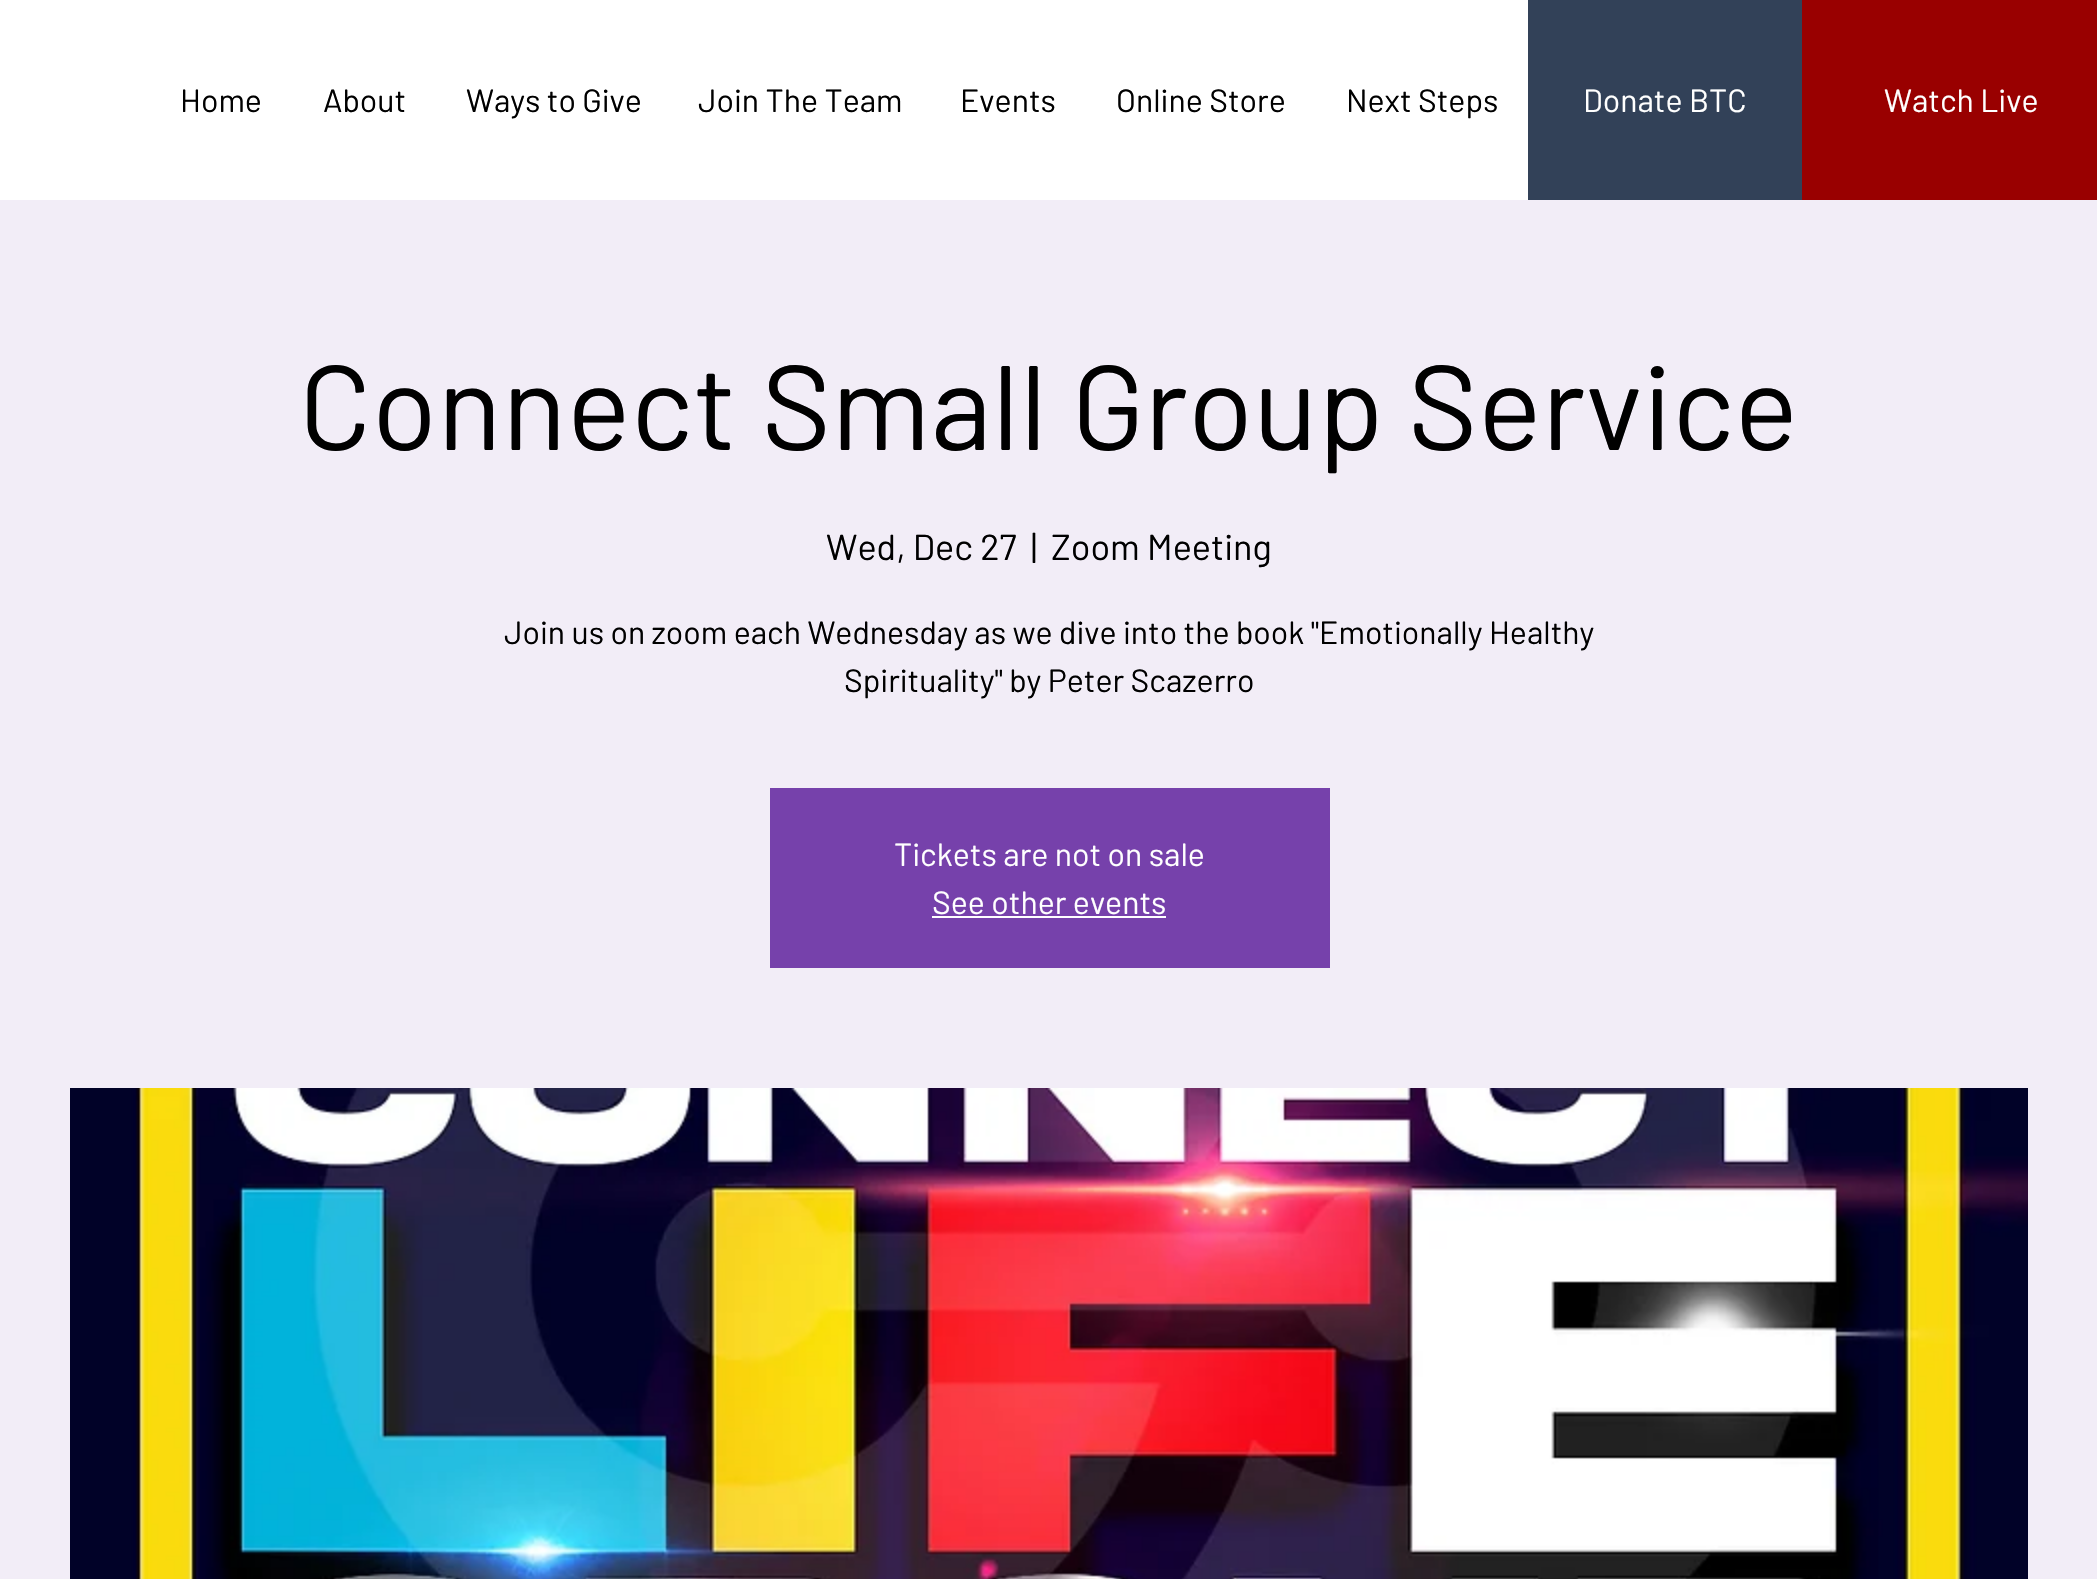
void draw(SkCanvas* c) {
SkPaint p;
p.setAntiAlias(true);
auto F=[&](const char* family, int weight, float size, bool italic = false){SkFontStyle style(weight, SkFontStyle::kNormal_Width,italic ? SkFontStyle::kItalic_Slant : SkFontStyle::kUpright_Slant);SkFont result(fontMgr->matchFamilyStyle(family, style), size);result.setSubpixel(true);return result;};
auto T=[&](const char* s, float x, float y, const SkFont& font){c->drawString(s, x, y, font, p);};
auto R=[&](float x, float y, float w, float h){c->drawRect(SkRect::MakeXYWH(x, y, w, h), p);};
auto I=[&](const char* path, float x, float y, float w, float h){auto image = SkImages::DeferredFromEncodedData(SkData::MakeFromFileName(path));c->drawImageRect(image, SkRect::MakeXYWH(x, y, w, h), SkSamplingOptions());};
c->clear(0xffffffff);
auto f1 = F("Barlow",400,32);
p.setColor(0xff000000);
T("Home",180,112,f1);
T("About",323,112,f1);
T("Ways to Give",466,112,f1);
T("Join The Team",698,112,f1);
T("Events",960,112,f1);
T("Online Store",1116,112,f1);
T("Next Steps",1346,112,f1);
p.setColor(0xff324158);
R(1528,0,274,200);
p.setColor(0xffffffff);
T("Donate BTC",1583,112,f1);
p.setColor(0xff990000);
R(1802,0,295,200);
p.setColor(0xffffffff);
T("Watch Live",1884,112,f1);
p.setColor(0xfff2edf7);
R(0,200,2097,1379);
auto f2 = F("Barlow",400,120);
p.setColor(0xff000000);
T("Connect Small Group Service",299,450,f2);
auto f3 = F("Barlow",400,36);
T("Wed, Dec 27",826,560,f3);
T("|",1031,560,f3);
T("Zoom Meeting",1051,560,f3);
T("Join us on zoom each Wednesday as we dive into the book \"Emotionally Healthy",504,644,f1);
T("Spirituality\" by Peter Scazerro",844,692,f1);
p.setColor(0xff7641ab);
R(770,788,560,180);
p.setColor(0xffffffff);
T("Tickets are not on sale",894,866,f1);
T("See other events",932,914,f1);
R(932,916,234,2);
I("1.png",70,1088,1958,491);
}
